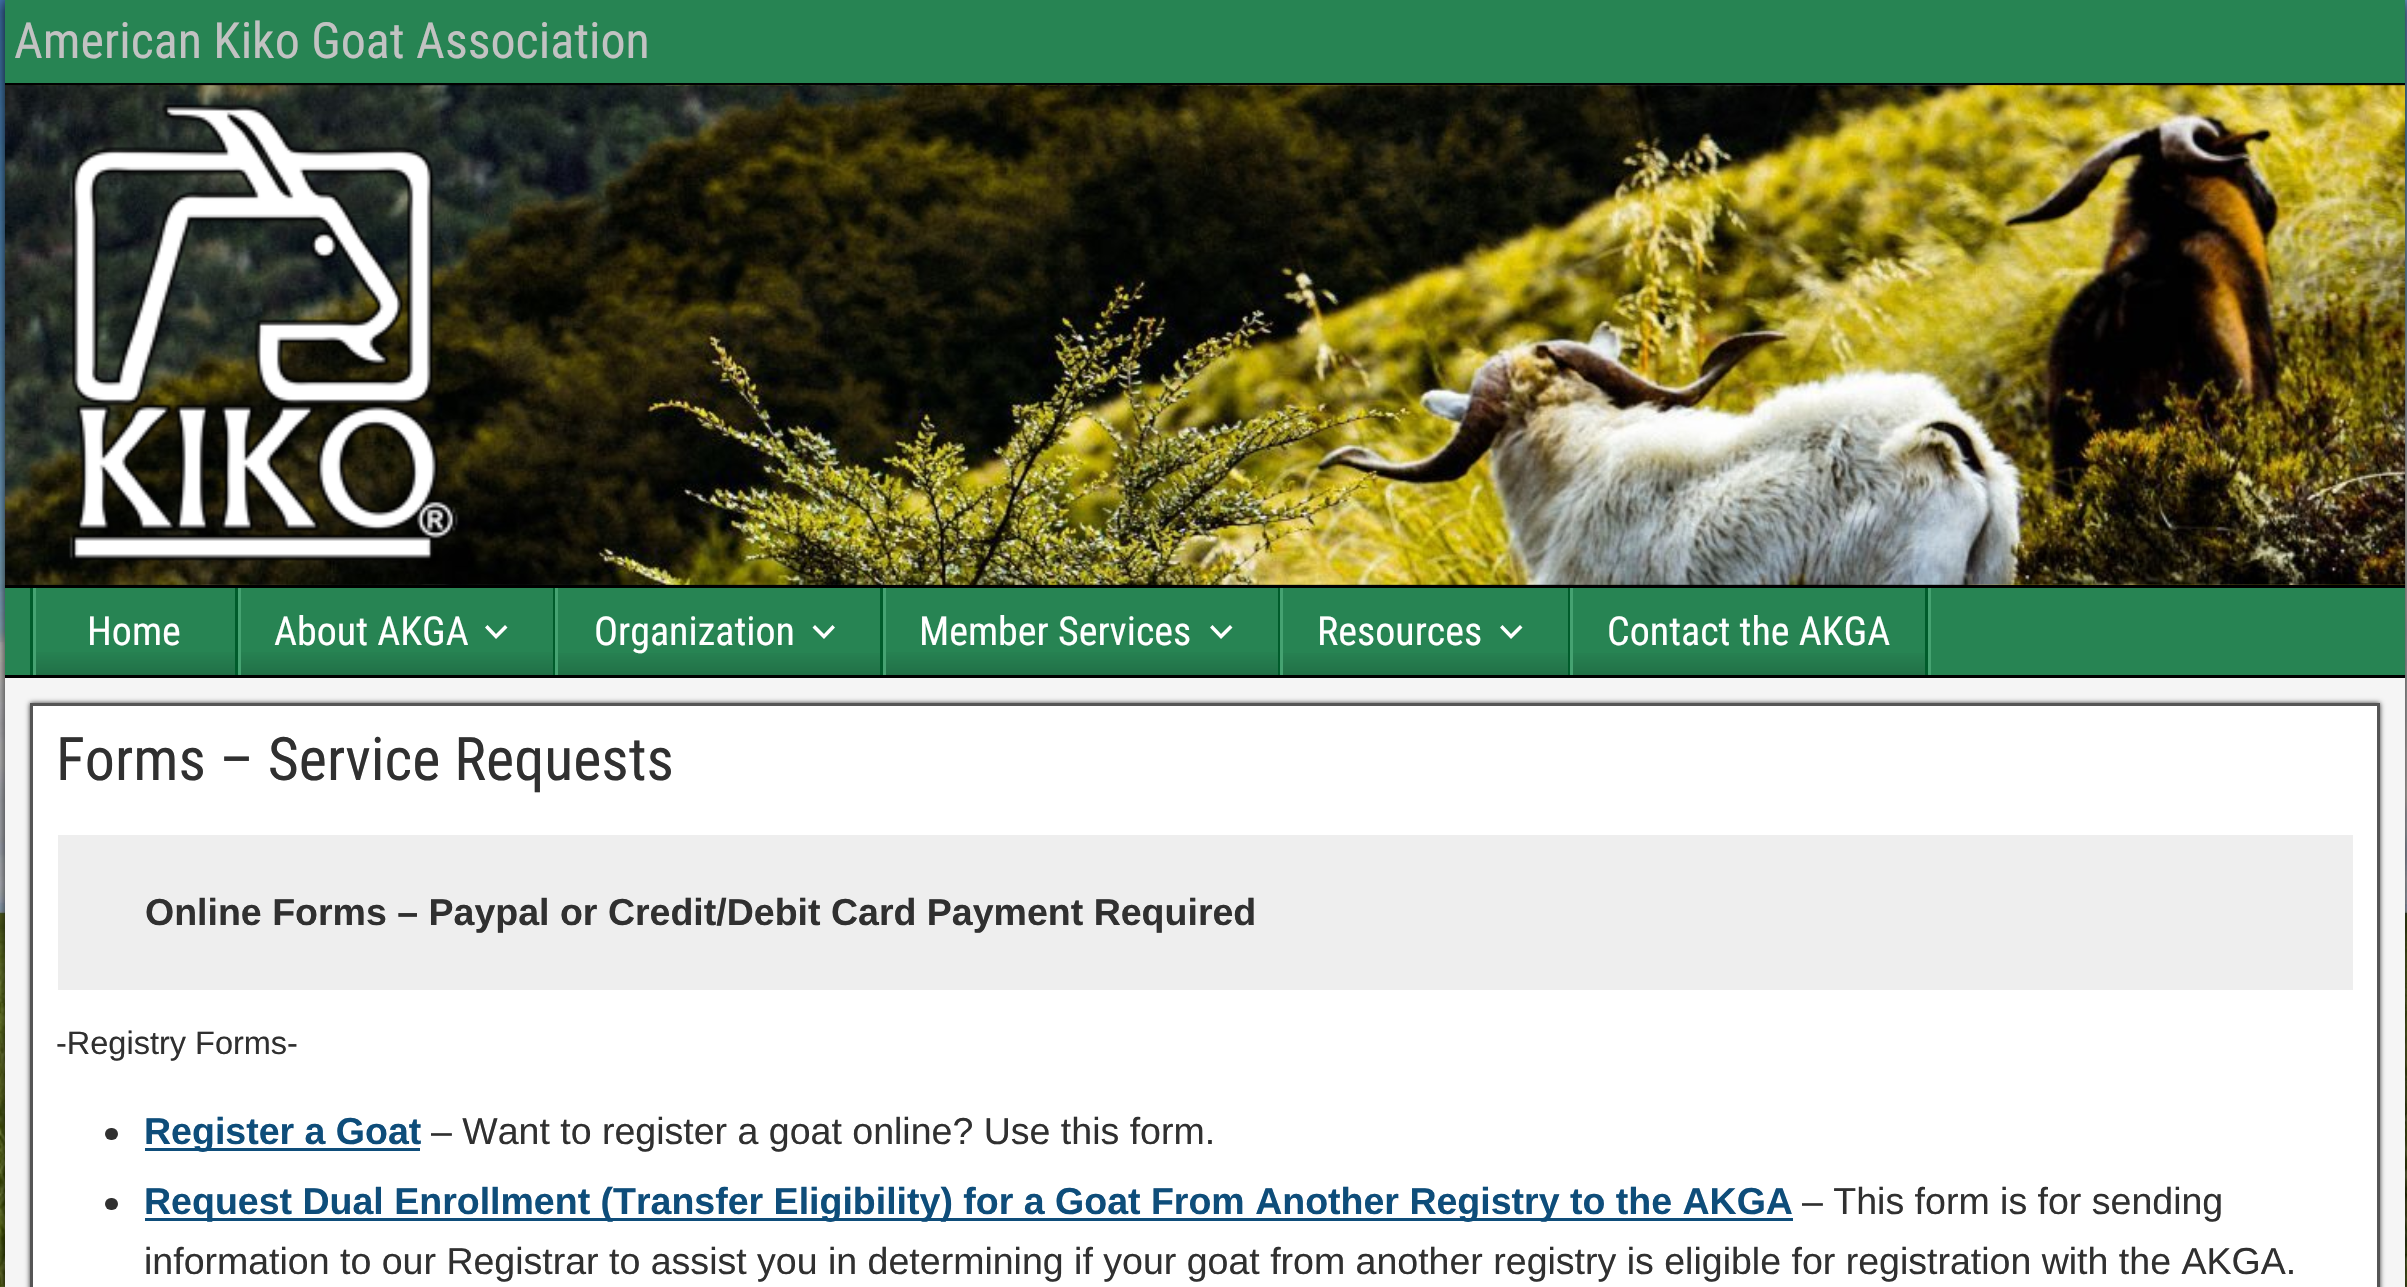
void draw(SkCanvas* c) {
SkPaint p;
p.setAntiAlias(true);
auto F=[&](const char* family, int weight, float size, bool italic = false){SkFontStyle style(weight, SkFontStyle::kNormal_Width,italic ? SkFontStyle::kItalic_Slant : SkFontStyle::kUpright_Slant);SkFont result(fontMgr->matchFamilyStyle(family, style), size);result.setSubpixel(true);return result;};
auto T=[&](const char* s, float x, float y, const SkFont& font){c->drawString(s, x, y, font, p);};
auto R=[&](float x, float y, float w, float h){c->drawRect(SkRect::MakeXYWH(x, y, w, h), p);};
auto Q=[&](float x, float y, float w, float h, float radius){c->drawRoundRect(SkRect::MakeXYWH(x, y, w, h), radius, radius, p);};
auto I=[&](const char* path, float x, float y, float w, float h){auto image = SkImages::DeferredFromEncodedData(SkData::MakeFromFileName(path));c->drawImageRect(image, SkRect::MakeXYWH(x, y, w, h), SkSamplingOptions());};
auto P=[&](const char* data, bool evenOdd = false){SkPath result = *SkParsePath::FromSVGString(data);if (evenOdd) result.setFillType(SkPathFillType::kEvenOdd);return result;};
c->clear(0xffffffff);
I("1.png",0,0,2407,1287);
p.setColor(0xff000000);
p.setMaskFilter(SkMaskFilter::MakeBlur(kNormal_SkBlurStyle, 7.5));
c->drawRect(SkRect::MakeXYWH(5,0,2400,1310),p);
p.setMaskFilter(nullptr);
p.setColor(0xff278453);
R(5,0,2400,83);
p.setColor(0xff000000);
R(5,83,2400,2);
auto f1 = F("Roboto Condensed",400,50);
p.setColor(0xffc2c2c2);
T("American Kiko Goat Association",14,58,f1);
I("2.png",5,85,2400,500);
p.setColor(0xff000000);
R(5,585,2400,3);
I("3.png",69,103,390,458);
p.setColor(0xff278453);
R(5,588,2400,87);
p.setColor(0xff000000);
R(5,675,2400,3);
p.setColor(0xff45a271);
R(1928,588,3,87);
p.setColor(0xff005c2b);
R(30,588,3,87);
{
const SkColor colors[] = {0xff278453,0xff217047};
const float stops[] = {.7,1};
const SkPoint ends[] = {{135,588}, {135,675}};
p.setShader(SkGradientShader::MakeLinear(ends, colors, stops, 2, SkTileMode::kClamp));
p.setAlpha(255);
}
R(36,652,199,23);
p.setShader(nullptr);
p.setColor(0xff005c2b);
R(235,588,3,87);
p.setColor(0xff45a271);
R(33,588,3,87);
auto f2 = F("Roboto Condensed",400,40);
p.setColor(0xffffffff);
T("Home",87,645,f2);
{
const SkColor colors[] = {0xff278453,0xff217047};
const float stops[] = {.7,1};
const SkPoint ends[] = {{396,588}, {396,675}};
p.setShader(SkGradientShader::MakeLinear(ends, colors, stops, 2, SkTileMode::kClamp));
p.setAlpha(255);
}
R(241,652,312,23);
p.setShader(nullptr);
p.setColor(0xff005c2b);
R(553,588,2,87);
p.setColor(0xff45a271);
R(238,588,3,87);
p.setColor(0xffffffff);
T("About AKGA",274,645,f2);
c->drawPath(P("M505 625l2.5 2.5l-11.5 11.5l-11-11.5l2.5-2.5l8.5 9z"),p);
{
const SkColor colors[] = {0x00000000,0x26000000};
const float stops[] = {.7,1};
const SkPoint ends[] = {{719,588}, {719,675}};
p.setShader(SkGradientShader::MakeLinear(ends, colors, stops, 2, SkTileMode::kClamp));
p.setAlpha(255);
}
R(558,653,322,22);
p.setShader(nullptr);
p.setColor(0xff005c2b);
R(880,588,3,87);
p.setColor(0xff45a271);
R(555,588,3,87);
p.setColor(0xffffffff);
T("Organization",594,645,f2);
c->drawPath(P("M832.5 625l2.5 2.5l-11 11.5l-11.5-11.5l2.5-2.5l9 9z"),p);
{
const SkColor colors[] = {0xff278453,0xff217047};
const float stops[] = {.7,1};
const SkPoint ends[] = {{1081,588}, {1081,675}};
p.setShader(SkGradientShader::MakeLinear(ends, colors, stops, 2, SkTileMode::kClamp));
p.setAlpha(255);
}
R(886,652,392,23);
p.setShader(nullptr);
p.setColor(0xff005c2b);
R(1278,588,2,87);
p.setColor(0xff45a271);
R(883,588,3,87);
p.setColor(0xffffffff);
T("Member Services",919,645,f2);
c->drawPath(P("M1230 625l2.5 2.5l-11.5 11.5l-11-11.5l2.5-2.5l8.5 9z"),p);
{
const SkColor colors[] = {0x00000000,0x26000000};
const float stops[] = {.7,1};
const SkPoint ends[] = {{1425,588}, {1425,675}};
p.setShader(SkGradientShader::MakeLinear(ends, colors, stops, 2, SkTileMode::kClamp));
p.setAlpha(255);
}
R(1283,653,285,22);
p.setShader(nullptr);
p.setColor(0xff005c2b);
R(1568,588,2,87);
p.setColor(0xff45a271);
R(1280,588,3,87);
p.setColor(0xffffffff);
T("Resources",1317,645,f2);
c->drawPath(P("M1520 625l2.5 2.5l-11.5 11.5l-11-11.5l2.5-2.5l8.5 9z"),p);
{
const SkColor colors[] = {0x00000000,0x26000000};
const float stops[] = {.7,1};
const SkPoint ends[] = {{1749,588}, {1749,675}};
p.setShader(SkGradientShader::MakeLinear(ends, colors, stops, 2, SkTileMode::kClamp));
p.setAlpha(255);
}
R(1573,653,352,22);
p.setShader(nullptr);
p.setColor(0xff005c2b);
R(1925,588,3,87);
p.setColor(0xff45a271);
R(1570,588,3,87);
p.setColor(0xffffffff);
T("Contact the AKGA",1607,645,f2);
p.setColor(0xfff5f5f5);
R(5,678,2400,609);
p.setColor(0xff333333);
p.setMaskFilter(SkMaskFilter::MakeBlur(kNormal_SkBlurStyle, 2.5));
c->drawRect(SkRect::MakeXYWH(30,703,2350,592),p);
p.setMaskFilter(nullptr);
p.setColor(0xffffffff);
c->drawRect(SkRect::MakeXYWH(31.5,704.5,2347,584),p);
p.setStroke(true);
p.setStrokeWidth(3);
p.setColor(0xff555555);
c->drawRect(SkRect::MakeXYWH(31.5,704.5,2347,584),p);
auto f3 = F("Roboto Condensed",400,60);
p.setStroke(false);
p.setColor(0xff303030);
T("Forms – Service Requests",56,780,f3);
p.setColor(0xffeeeeee);
R(58,835,2295,155);
auto f4 = F("Arimo",700,37.52);
p.setColor(0xff303030);
T("Online Forms – Paypal or Credit/Debit Card Payment Required",145,925,f4);
auto f5 = F("Arimo",400,32.5);
T("-Registry Forms-",56,1054,f5);
Q(105,1128,13,12,6);
p.setColor(0xff0e4d7a);
R(145,1148,275,3);
T("Register a Goat",144,1144,f4);
auto f6 = F("Arimo",400,37.52);
p.setColor(0xff303030);
T("– Want to register a goat online? Use this form.",431,1144,f6);
Q(105,1198,13,12,6);
p.setColor(0xff0e4d7a);
R(145,1218,1648,3);
T("Request Dual Enrollment (Transfer Eligibility) for a Goat From Another Registry to the AKGA",144,1214,f4);
p.setColor(0xff303030);
T("– This form is for sending",1802,1214,f6);
T("information to our Registrar to assist you in determining if your goat from another registry is eligible for registration with the AKGA.",144,1274,f6);
}
